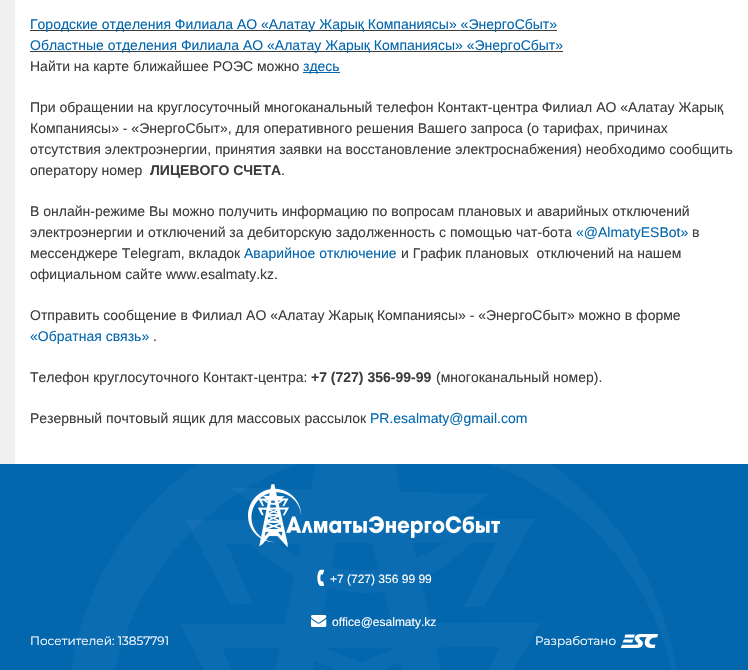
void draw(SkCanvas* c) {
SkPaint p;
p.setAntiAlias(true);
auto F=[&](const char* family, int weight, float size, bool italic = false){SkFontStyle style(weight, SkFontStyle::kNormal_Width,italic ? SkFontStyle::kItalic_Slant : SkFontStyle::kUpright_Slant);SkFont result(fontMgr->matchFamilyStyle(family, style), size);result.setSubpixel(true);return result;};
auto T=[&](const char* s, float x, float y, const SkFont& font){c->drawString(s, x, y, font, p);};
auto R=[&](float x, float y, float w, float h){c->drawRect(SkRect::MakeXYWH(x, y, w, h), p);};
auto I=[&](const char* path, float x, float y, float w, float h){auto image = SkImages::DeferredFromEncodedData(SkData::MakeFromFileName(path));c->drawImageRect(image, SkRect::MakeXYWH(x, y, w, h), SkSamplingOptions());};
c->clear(0xffffffff);
{
const SkColor colors[] = {0xfff0f0f0,0xffffffff};
const float stops[] = {.3,.7};
const SkPoint ends[] = {{0,94}, {748,93}};
p.setShader(SkGradientShader::MakeLinear(ends, colors, stops, 2, SkTileMode::kClamp));
p.setAlpha(255);
}
R(0,0,15,464);
p.setShader(nullptr);
p.setColor(0xff3d3d3d);
R(30,30,527,1);
auto f1 = F("Liberation Sans",400,14);
p.setColor(0xff0367ae);
T("Городские отделения Филиала АО «Алатау Жарық Компаниясы» «ЭнергоСбыт»",30,29,f1);
p.setColor(0xff3d3d3d);
R(30,51,533,1);
p.setColor(0xff0367ae);
T("Областные отделения Филиала АО «Алатау Жарық Компаниясы» «ЭнергоСбыт»",30,50,f1);
p.setColor(0xff3d3d3d);
T("Найти на карте ближайшее РОЭС можно",30,71,f1);
p.setColor(0xff0367ae);
R(303,72,37,1);
T("здесь",303,71,f1);
p.setColor(0xff3d3d3d);
T("При обращении на круглосуточный многоканальный телефон Контакт-центра Филиал АО «Алатау Жарық",30,112,f1);
T("Компаниясы» - «ЭнергоСбыт», для оперативного решения Вашего запроса (о тарифах, причинах",30,133,f1);
T("отсутствия электроэнергии, принятия заявки на восстановление электроснабжения) необходимо сообщить",30,154,f1);
T("оператору номер",30,175,f1);
auto f2 = F("Liberation Sans",700,14);
T("ЛИЦЕВОГО СЧЕТА",150,175,f2);
T(".",281,175,f1);
T("В онлайн-режиме Вы можно получить информацию по вопросам плановых и аварийных отключений",30,216,f1);
T("электроэнергии и отключений за дебиторскую задолженность с помощью чат-бота",30,237,f1);
p.setColor(0xff0367ae);
T("«@AlmatyESBot»",576,237,f1);
p.setColor(0xff3d3d3d);
T("в",692,237,f1);
T("мессенджере Telegram, вкладок",30,258,f1);
p.setColor(0xff0367ae);
T("Аварийное отключение",244,258,f1);
p.setColor(0xff3d3d3d);
T("и График плановых  отключений на нашем",401,258,f1);
T("официальном сайте www.esalmaty.kz.",30,279,f1);
T("Отправить сообщение в Филиал АО «Алатау Жарық Компаниясы» - «ЭнергоСбыт» можно в форме",30,320,f1);
p.setColor(0xff0367ae);
T("«Обратная связь»",30,341,f1);
p.setColor(0xff3d3d3d);
T(".",153,341,f1);
T("Телефон круглосуточного Контакт-центра:",30,382,f1);
T("+7 (727) 356-99-99",311,382,f2);
T("(многоканальный номер).",436,382,f1);
T("Резервный почтовый ящик для массовых рассылок",30,423,f1);
p.setColor(0xff0367ae);
T("PR.esalmaty@gmail.com",370,423,f1);
I("1.png",0,464,748,206);
I("2.png",248,484,252,64);
I("3.png",317,569,8,17);
auto f3 = F("Liberation Sans",400,12);
p.setColor(0xffffffff);
T("+7 (727) 356 99 99",330,583,f3);
I("4.png",311,615,16,12);
T("office@esalmaty.kz",332,626,f3);
auto f4 = F("Montserrat",400,12);
T("Посетителей: 13857791",30,645,f4);
T("Разработано",535,645,f4);
I("5.png",621,634,37,14);
}
